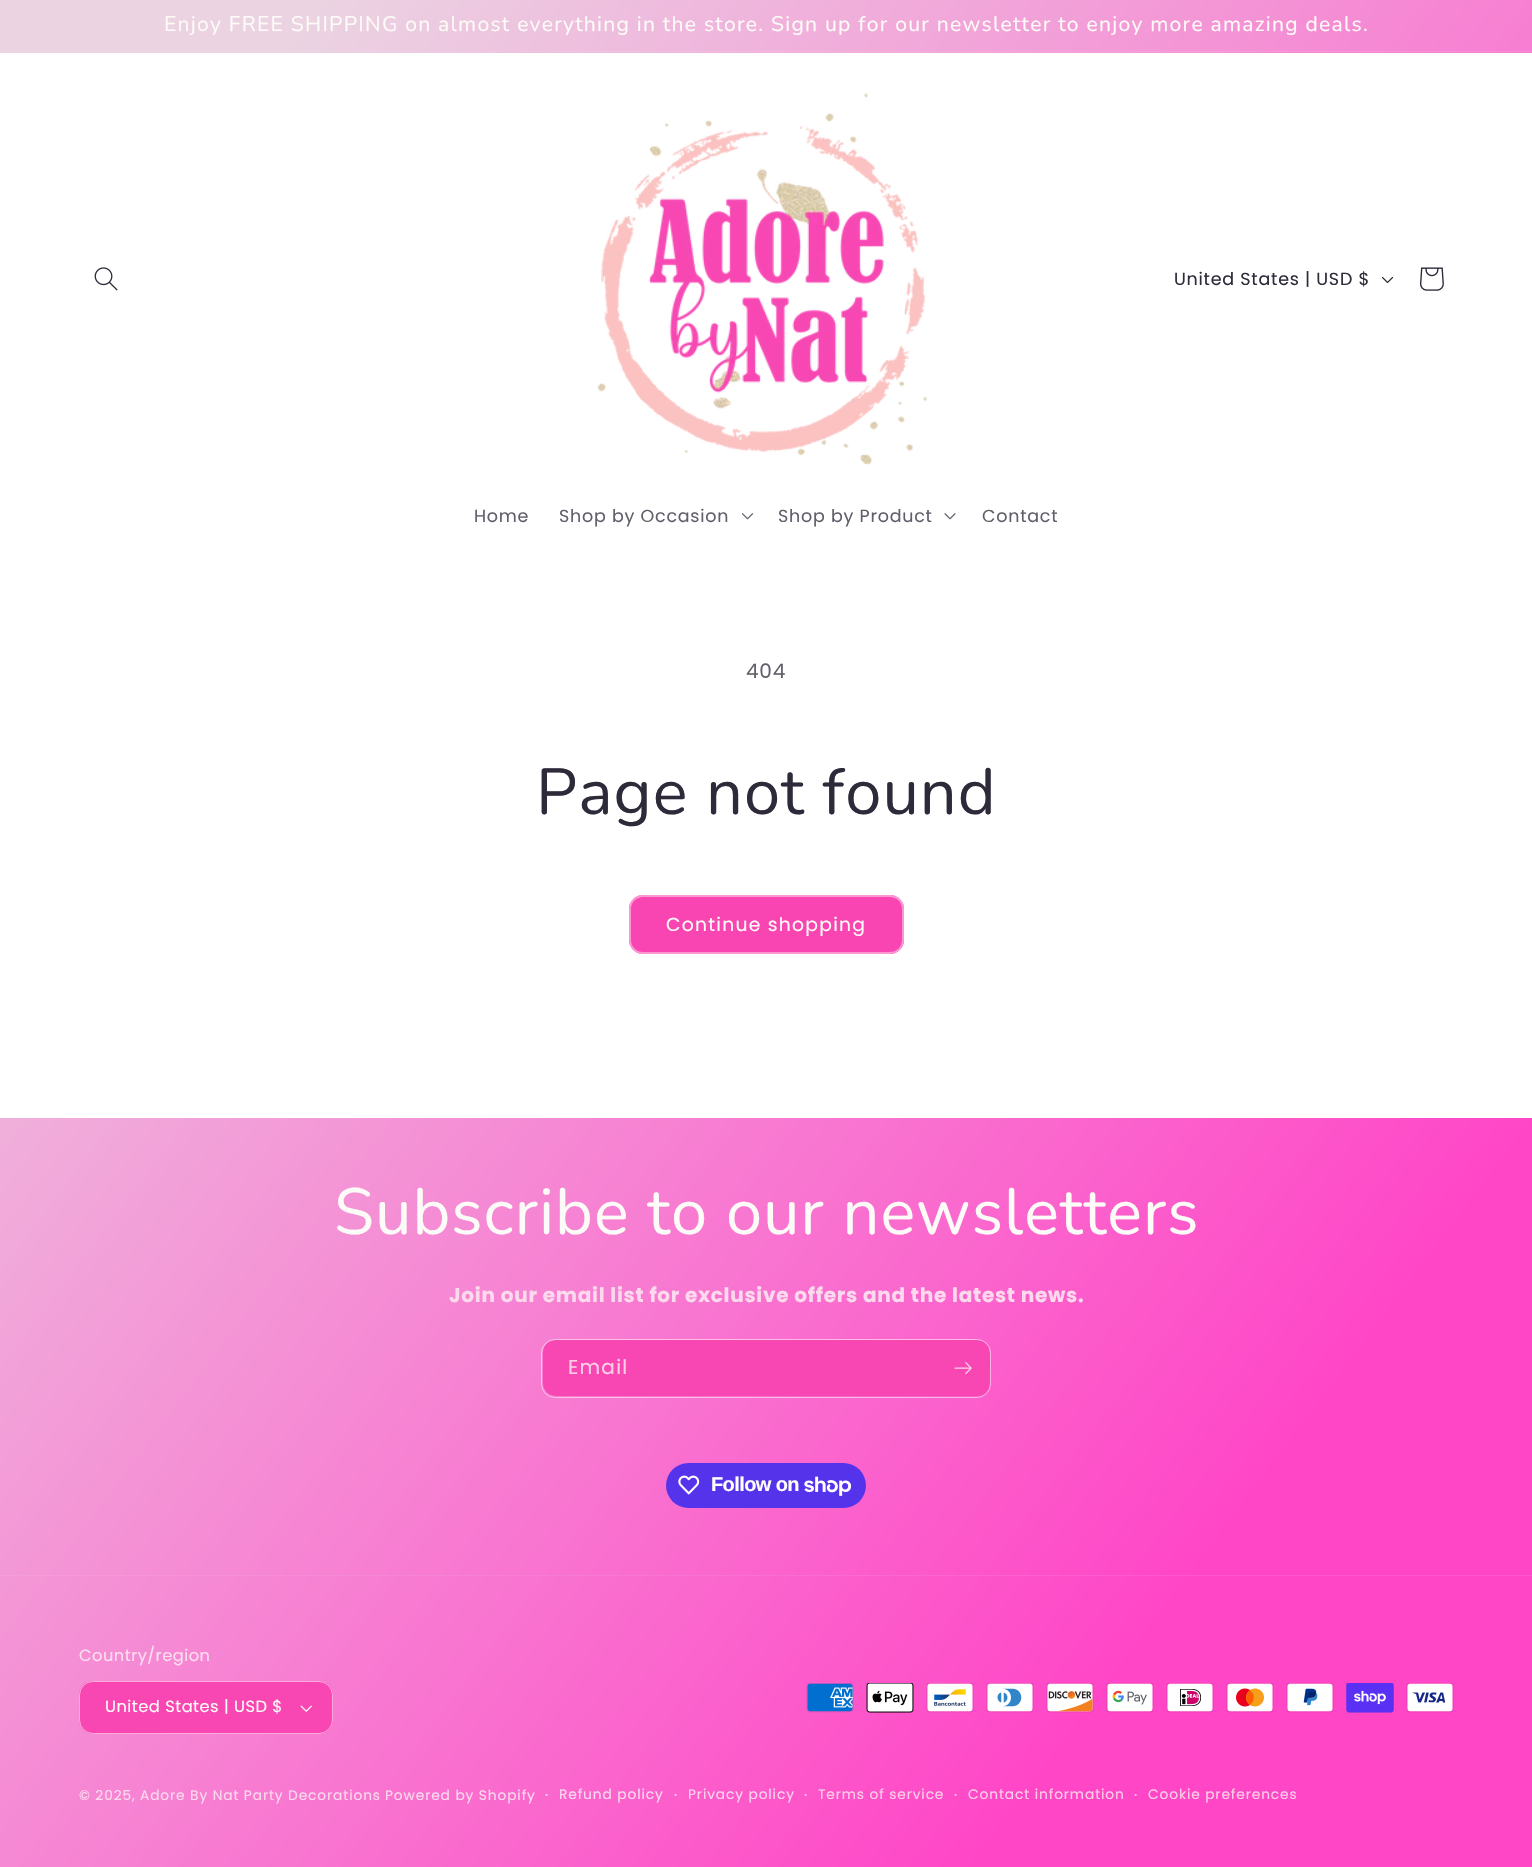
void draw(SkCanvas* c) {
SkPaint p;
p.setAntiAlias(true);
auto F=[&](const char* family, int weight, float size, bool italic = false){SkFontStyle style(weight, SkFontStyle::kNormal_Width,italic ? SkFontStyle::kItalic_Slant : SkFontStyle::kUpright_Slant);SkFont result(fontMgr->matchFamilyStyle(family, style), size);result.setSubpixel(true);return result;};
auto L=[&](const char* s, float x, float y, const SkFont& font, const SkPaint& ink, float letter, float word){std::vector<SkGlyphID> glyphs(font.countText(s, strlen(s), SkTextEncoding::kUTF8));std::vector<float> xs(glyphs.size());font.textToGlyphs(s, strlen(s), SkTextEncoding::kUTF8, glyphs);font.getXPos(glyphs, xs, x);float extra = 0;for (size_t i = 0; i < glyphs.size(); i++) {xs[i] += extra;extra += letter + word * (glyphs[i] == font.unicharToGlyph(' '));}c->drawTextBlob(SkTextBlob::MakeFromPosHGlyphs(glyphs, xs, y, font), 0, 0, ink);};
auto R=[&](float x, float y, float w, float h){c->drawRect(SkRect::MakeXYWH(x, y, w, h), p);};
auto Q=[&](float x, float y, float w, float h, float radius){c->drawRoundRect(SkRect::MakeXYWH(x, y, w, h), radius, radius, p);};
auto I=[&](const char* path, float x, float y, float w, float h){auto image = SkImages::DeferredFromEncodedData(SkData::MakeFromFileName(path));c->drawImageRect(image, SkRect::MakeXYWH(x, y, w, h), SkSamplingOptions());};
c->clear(0xffffffff);
{
const SkColor colors[] = {0xffebd3e2,0xffff46c7};
const float stops[] = {.11,.81};
const SkPoint ends[] = {{-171,227}, {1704,1640}};
p.setShader(SkGradientShader::MakeLinear(ends, colors, stops, 2, SkTileMode::kClamp));
p.setAlpha(255);
}
R(0,0,1532,53);
{
const SkColor colors[] = {0xffecd6e4,0xffff54cb};
const float stops[] = {.11,.81};
const SkPoint ends[] = {{-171,227}, {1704,1640}};
p.setShader(SkGradientShader::MakeLinear(ends, colors, stops, 2, SkTileMode::kClamp));
p.setAlpha(255);
}
R(0,51,1532,1);
auto f1 = F("Nunito",400,21.12);
p.setShader(nullptr);
p.setColor(0xfffdfbf7);
L("Enjoy FREE SHIPPING on almost everything in the store. Sign up for our newsletter to enjoy more amazing deals.",164,31,f1,p,1.25,0);
I("1.png",94,267,24,24);
I("2.png",597,92,331,373);
auto f2 = F("Poppins",400,17.5);
p.setColor(0xff2e2a39);
L("United States | USD $",1174,285,f2,p,.75,0);
I("3.png",1381,276,13,8);
I("4.png",1420,267,24,24);
p.setColor(0xff625f6b);
L("Home",474,522,f2,p,.75,0);
L("Shop by Occasion",559,522,f2,p,.75,0);
I("5.png",741,513,13,7);
L("Shop by Product",778,522,f2,p,.75,0);
I("6.png",944,513,12,7);
L("Contact",982,522,f2,p,.75,0);
auto f3 = F("Poppins",400,20);
L("404",746,678,f3,p,.75,0);
auto f4 = F("Nunito",400,65);
p.setColor(0xff2e2a39);
L("Page not found",536,814,f4,p,1,0);
p.setColor(0xfff945b2);
Q(629,895,275,59,14);
p.setStroke(true);
p.setStrokeWidth(1);
c->drawRoundRect(SkRect::MakeXYWH(629.5,895.5,274,58),13.5,13.5,p);
p.setStrokeWidth(2);
p.setColor(0x73fdfbf7);
c->drawRoundRect(SkRect::MakeXYWH(630,896,273,57),13,13,p);
auto f5 = F("Poppins",400,18.75);
p.setStroke(false);
p.setColor(0xfffdfbf7);
L("Continue shopping",666,931,f5,p,1.25,0);
{
const SkColor colors[] = {0xffebd3e2,0xffff46c7};
const float stops[] = {.11,.81};
const SkPoint ends[] = {{-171,227}, {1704,1640}};
p.setShader(SkGradientShader::MakeLinear(ends, colors, stops, 2, SkTileMode::kClamp));
p.setAlpha(255);
}
R(0,1118,1532,290);
p.setShader(nullptr);
p.setColor(0xfffdfbf7);
L("Subscribe to our newsletters",334,1234,f4,p,1,0);
auto f6 = F("Poppins",700,20);
p.setColor(0xfffcd9ed);
L("Join our email list for exclusive offers and the latest news.",449,1302,f6,p,.75,0);
p.setColor(0xfff847b3);
Q(543,1340,447,56,13);
p.setStroke(true);
p.setStrokeWidth(1);
p.setColor(0x8cfdfbf7);
c->drawRoundRect(SkRect::MakeXYWH(541.5,1339.5,449,58),13.5,13.5,p);
p.setStroke(false);
p.setColor(0xfffccee6);
L("Email",568,1374,f3,p,1.25,0);
I("7.png",954,1362,18,13);
{
const SkColor colors[] = {0xffebd3e2,0xffff46c7};
const float stops[] = {.11,.81};
const SkPoint ends[] = {{-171,227}, {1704,1640}};
p.setShader(SkGradientShader::MakeLinear(ends, colors, stops, 2, SkTileMode::kClamp));
p.setAlpha(255);
}
R(0,1408,1532,459);
{
const SkColor colors[] = {0xffecd6e4,0xffff54cb};
const float stops[] = {.11,.81};
const SkPoint ends[] = {{-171,227}, {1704,1640}};
p.setShader(SkGradientShader::MakeLinear(ends, colors, stops, 2, SkTileMode::kClamp));
p.setAlpha(255);
}
R(0,1575,1532,1);
p.setShader(nullptr);
p.setColor(0xff5433eb);
Q(666,1463,200,45,22.5);
I("8.png",678,1475,22,20);
auto f7 = F("Liberation Sans",700,20);
p.setColor(0xffffffff);
L("Follow on",711,1491,f7,p,-.6,0);
I("9.png",804,1476,47,20);
auto f8 = F("Poppins",400,16.25);
p.setColor(0xfffbdfee);
L("Country/region",79,1661,f8,p,.5,0);
p.setColor(0xfff847b3);
Q(79,1681,254,53,14);
I("10.png",300,1705,12,7);
p.setStroke(true);
p.setColor(0x8cfdfbf7);
c->drawRoundRect(SkRect::MakeXYWH(79.5,1681.5,253,52),13.5,13.5,p);
p.setStroke(false);
p.setColor(0xfffdfbf7);
L("United States | USD $",105,1712,f8,p,.5,0);
I("11.png",806,1683,48,30);
I("12.png",866,1683,48,30);
I("13.png",926,1683,48,30);
I("14.png",986,1683,48,30);
I("15.png",1046,1683,48,30);
I("16.png",1106,1683,48,30);
I("17.png",1166,1683,48,30);
I("18.png",1226,1683,48,30);
I("19.png",1286,1683,48,30);
I("20.png",1346,1683,48,30);
I("21.png",1406,1683,48,30);
auto f9 = F("Poppins",400,13.75);
p.setColor(0xfffcd9ed);
L("© 2025,",79,1800,f9,p,.9,0);
L("Adore By Nat Party Decorations",140,1800,f9,p,.9,0);
L("Powered by Shopify",385,1800,f9,p,.9,0);
auto f10 = F("Poppins",400,15);
L("·",545,1800,f10,p,.9,0);
L("Refund policy",559,1799,f9,p,.9,0);
L("·",674,1800,f10,p,.9,0);
p.setColor(0xfffdd3ec);
L("Privacy policy",688,1799,f9,p,.9,0);
L("·",804,1800,f10,p,.9,0);
p.setColor(0xfffccee6);
L("Terms of service",818,1799,f9,p,.9,0);
L("·",954,1800,f10,p,.9,0);
L("Contact information",968,1799,f9,p,.9,0);
L("·",1134,1800,f10,p,.9,0);
L("Cookie preferences",1148,1799,f9,p,.9,0);
}
